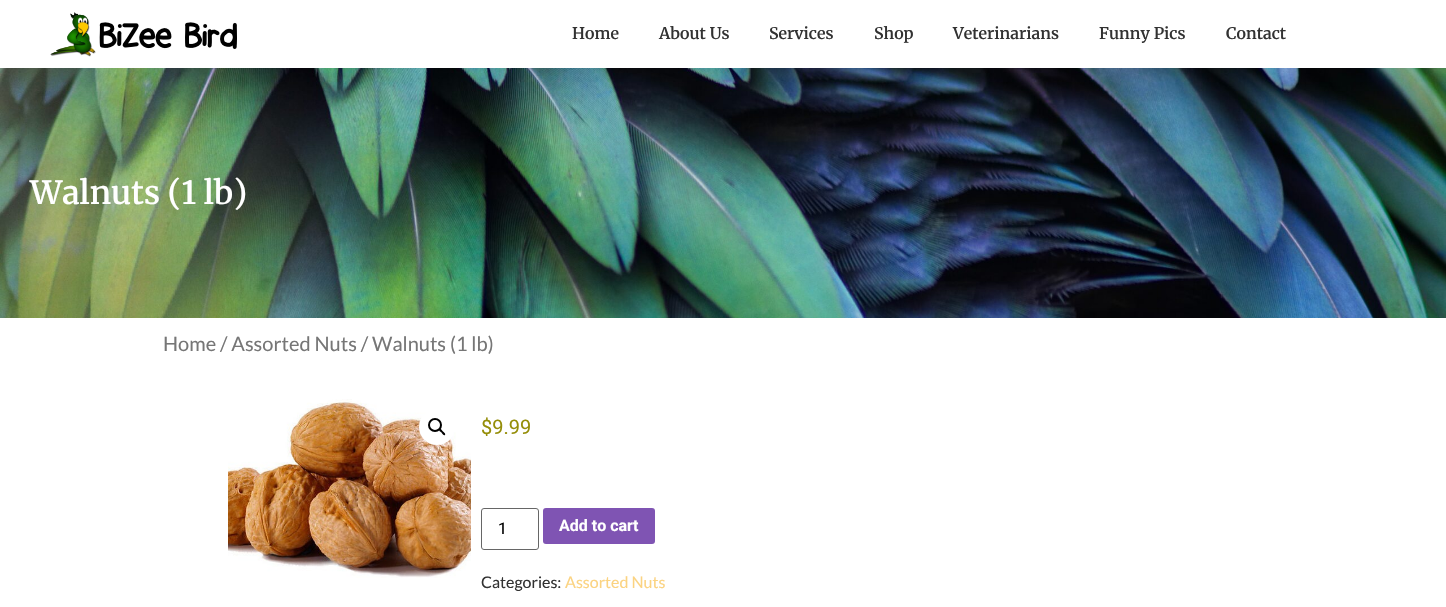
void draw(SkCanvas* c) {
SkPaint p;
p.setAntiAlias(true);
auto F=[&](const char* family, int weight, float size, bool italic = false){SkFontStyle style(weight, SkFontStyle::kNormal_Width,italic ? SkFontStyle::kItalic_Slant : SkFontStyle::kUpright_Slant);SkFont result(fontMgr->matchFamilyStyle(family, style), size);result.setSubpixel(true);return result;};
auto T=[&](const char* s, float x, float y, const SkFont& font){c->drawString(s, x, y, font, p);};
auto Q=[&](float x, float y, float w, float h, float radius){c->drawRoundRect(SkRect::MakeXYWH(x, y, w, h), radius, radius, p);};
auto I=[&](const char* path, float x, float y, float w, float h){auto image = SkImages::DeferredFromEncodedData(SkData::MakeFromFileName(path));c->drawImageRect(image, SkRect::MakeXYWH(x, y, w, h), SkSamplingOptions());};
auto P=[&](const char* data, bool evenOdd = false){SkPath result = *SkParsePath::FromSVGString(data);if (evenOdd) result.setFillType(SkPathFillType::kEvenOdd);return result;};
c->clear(0xffffffff);
I("1.png",50,12,187,45);
auto f1 = F("Merriweather",600,16);
p.setColor(0xff323232);
T("Home",572,39,f1);
T("About Us",659,39,f1);
T("Services",769,39,f1);
T("Shop",874,39,f1);
T("Veterinarians",953,39,f1);
T("Funny Pics",1099,39,f1);
T("Contact",1226,39,f1);
I("2.png",0,68,1446,250);
auto f2 = F("Merriweather",600,32);
p.setColor(0xffffffff);
T("Walnuts (1 lb)",30,204,f2);
auto f3 = F("Lato",400,20);
p.setColor(0xff767676);
T("Home / Assorted Nuts / Walnuts (1 lb)",163,351,f3);
I("3.png",228,399,243,179);
p.setColor(0xffffffff);
c->drawCircle(437,427,18,p);
p.setStroke(true);
p.setStrokeWidth(2);
p.setColor(0xff000000);
c->drawCircle(435,425,6,p);
p.setStroke(false);
c->drawPath(P("M439.5 429c1-1 2.5 1.5 3.5 2.5c.5 .5 3 2 2 3.5c-1 1-3-1.5-3.5-2.5c-.5-.5-3.5-2-2-3.5z"),p);
auto f4 = F("Roboto",400,20);
p.setColor(0xff958e09);
T("$9.99",481,434,f4);
p.setStroke(true);
p.setStrokeWidth(1);
p.setColor(0xff666666);
c->drawRoundRect(SkRect::MakeXYWH(481.5,508.5,57,41),2.5,2.5,p);
auto f5 = F("Roboto",400,16);
p.setStroke(false);
p.setColor(0xff000000);
T("1",498,534,f5);
p.setColor(0xff7f54b3);
Q(543,508,112,36,3);
auto f6 = F("Roboto",700,16);
p.setColor(0xffffffff);
T("Add to cart",559,531,f6);
auto f7 = F("Lato",400,16);
p.setColor(0xff323232);
T("Categories:",481,588,f7);
p.setColor(0xfffbd381);
T("Assorted Nuts",565,588,f7);
}
